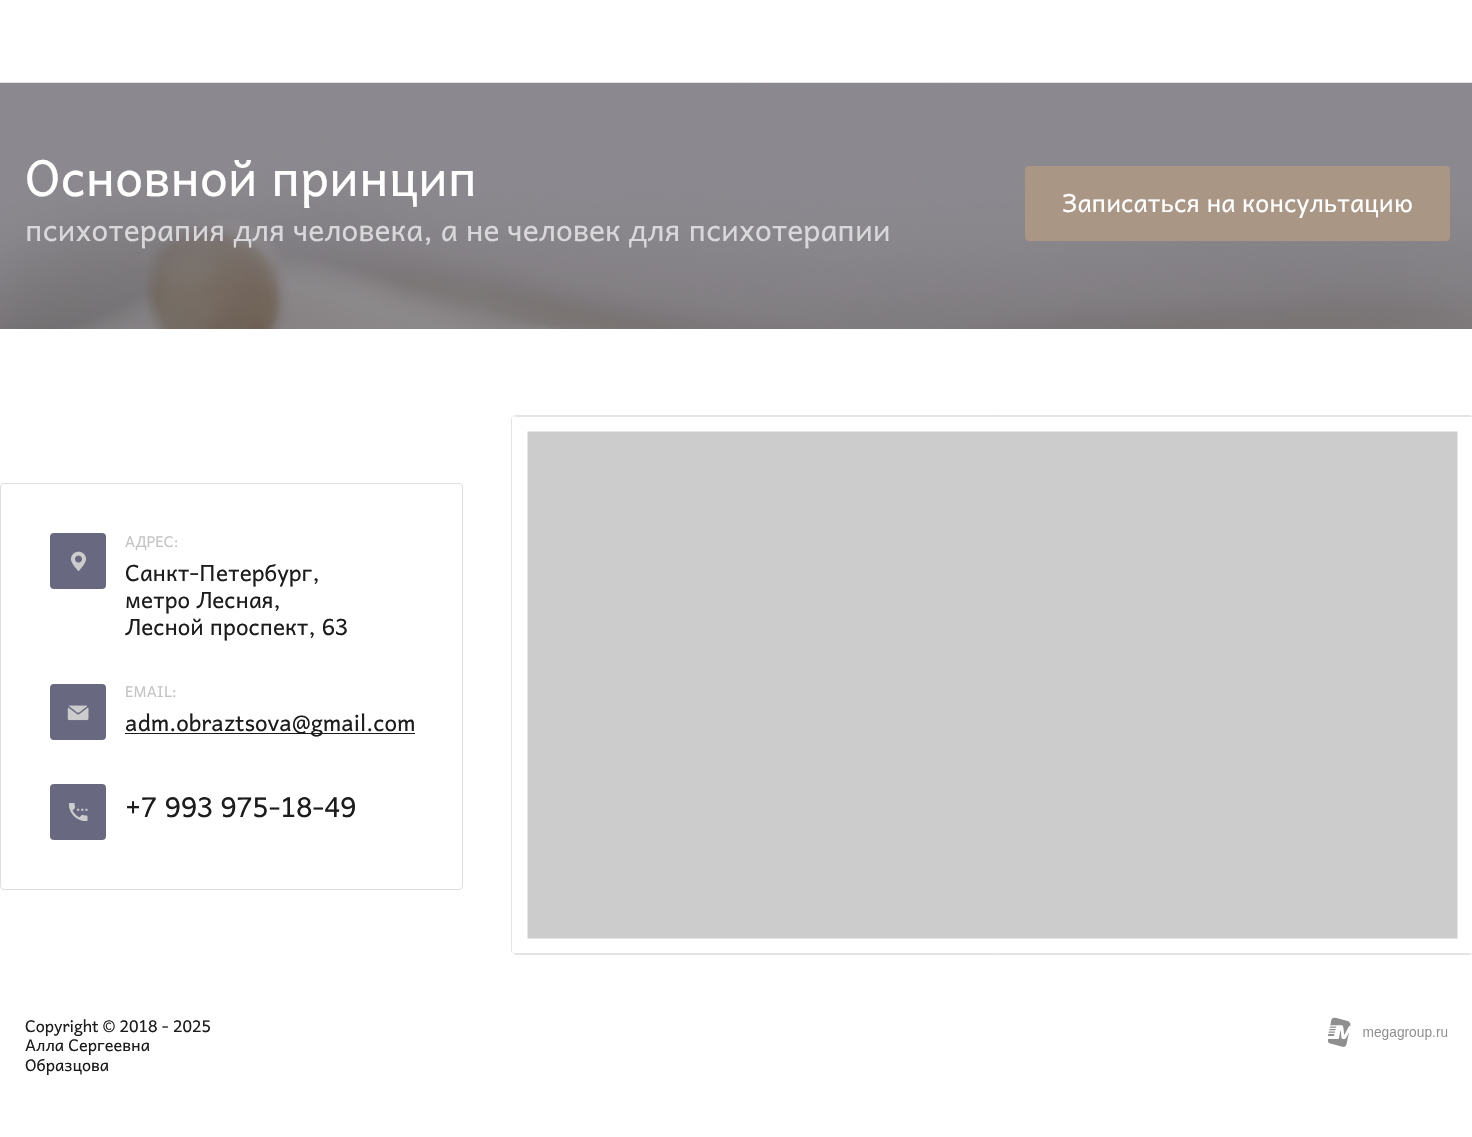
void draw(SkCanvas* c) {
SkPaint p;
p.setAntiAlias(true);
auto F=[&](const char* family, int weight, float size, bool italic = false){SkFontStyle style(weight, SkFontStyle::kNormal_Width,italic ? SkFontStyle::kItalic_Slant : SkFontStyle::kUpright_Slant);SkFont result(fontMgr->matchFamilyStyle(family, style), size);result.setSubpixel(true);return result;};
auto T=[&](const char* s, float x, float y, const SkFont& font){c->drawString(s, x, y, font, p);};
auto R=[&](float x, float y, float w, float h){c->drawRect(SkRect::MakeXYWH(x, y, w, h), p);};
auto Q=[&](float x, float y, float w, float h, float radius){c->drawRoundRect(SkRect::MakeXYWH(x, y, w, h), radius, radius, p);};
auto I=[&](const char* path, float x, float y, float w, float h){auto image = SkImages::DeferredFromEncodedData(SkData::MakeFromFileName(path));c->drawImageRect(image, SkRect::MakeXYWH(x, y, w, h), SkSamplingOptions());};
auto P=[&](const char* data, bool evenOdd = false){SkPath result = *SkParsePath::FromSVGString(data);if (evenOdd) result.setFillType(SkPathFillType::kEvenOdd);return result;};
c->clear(0xffffffff);
I("1.png",0,82,1472,247);
auto f1 = F("Andika",400,50);
p.setColor(0xffffffff);
T("Основной принцип",25,196,f1);
p.setColor(0xffaa9685);
Q(1025,166,425,75,4);
auto f2 = F("Andika",400,25);
p.setColor(0xffffffff);
T("Записаться на консультацию",1062,212,f2);
auto f3 = F("Andika",400,30);
p.setColor(0xffd8d7d9);
T("психотерапия для человека, а не человек для психотерапии",25,241,f3);
p.setStroke(true);
p.setStrokeWidth(1);
p.setColor(0xffdedede);
c->drawRoundRect(SkRect::MakeXYWH(.5,483.5,462,406),3.5,3.5,p);
p.setStroke(false);
p.setColor(0xff686880);
Q(50,533,56,56,4);
I("2.png",71,551,15,21);
auto f4 = F("Andika",400,15);
p.setColor(0xffc4c4c4);
T("АДРЕС:",125,547,f4);
auto f5 = F("Andika",400,22.5);
p.setColor(0xff1c1c1c);
T("Санкт-Петербург,",125,581,f5);
T("метро Лесная,",125,608,f5);
T("Лесной проспект, 63",125,635,f5);
p.setColor(0xff686880);
Q(50,684,56,56,4);
I("3.png",67,705,22,16);
p.setColor(0xffc4c4c4);
T("EMAIL:",125,697,f4);
p.setColor(0xff1c1c1c);
R(125,733,290,1);
T("adm.obraztsova@gmail.com",125,731,f5);
p.setColor(0xff686880);
Q(50,784,56,56,4);
I("4.png",69,803,19,18);
auto f6 = F("Andika",400,27.5);
p.setColor(0xff1c1c1c);
T("+7 993 975-18-49",125,817,f6);
p.setStroke(true);
p.setColor(0xffe3e3e3);
c->drawRoundRect(SkRect::MakeXYWH(511.5,415.5,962,539),4.5,4.5,p);
p.setStroke(false);
p.setColor(0xffcccccc);
Q(513,416,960,538,4);
p.setStroke(true);
p.setStrokeWidth(15);
p.setColor(0xffffffff);
c->drawPath(P("M520 424h945v522h-945z"),p);
auto f7 = F("Andika",400,16.25);
p.setStroke(false);
p.setColor(0xff1c1c1c);
T("Copyright © 2018 - 2025",25,1032,f7);
T("Алла Сергеевна",25,1051,f7);
T("Образцова",25,1071,f7);
I("5.png",1328,1017,120,30);
}
